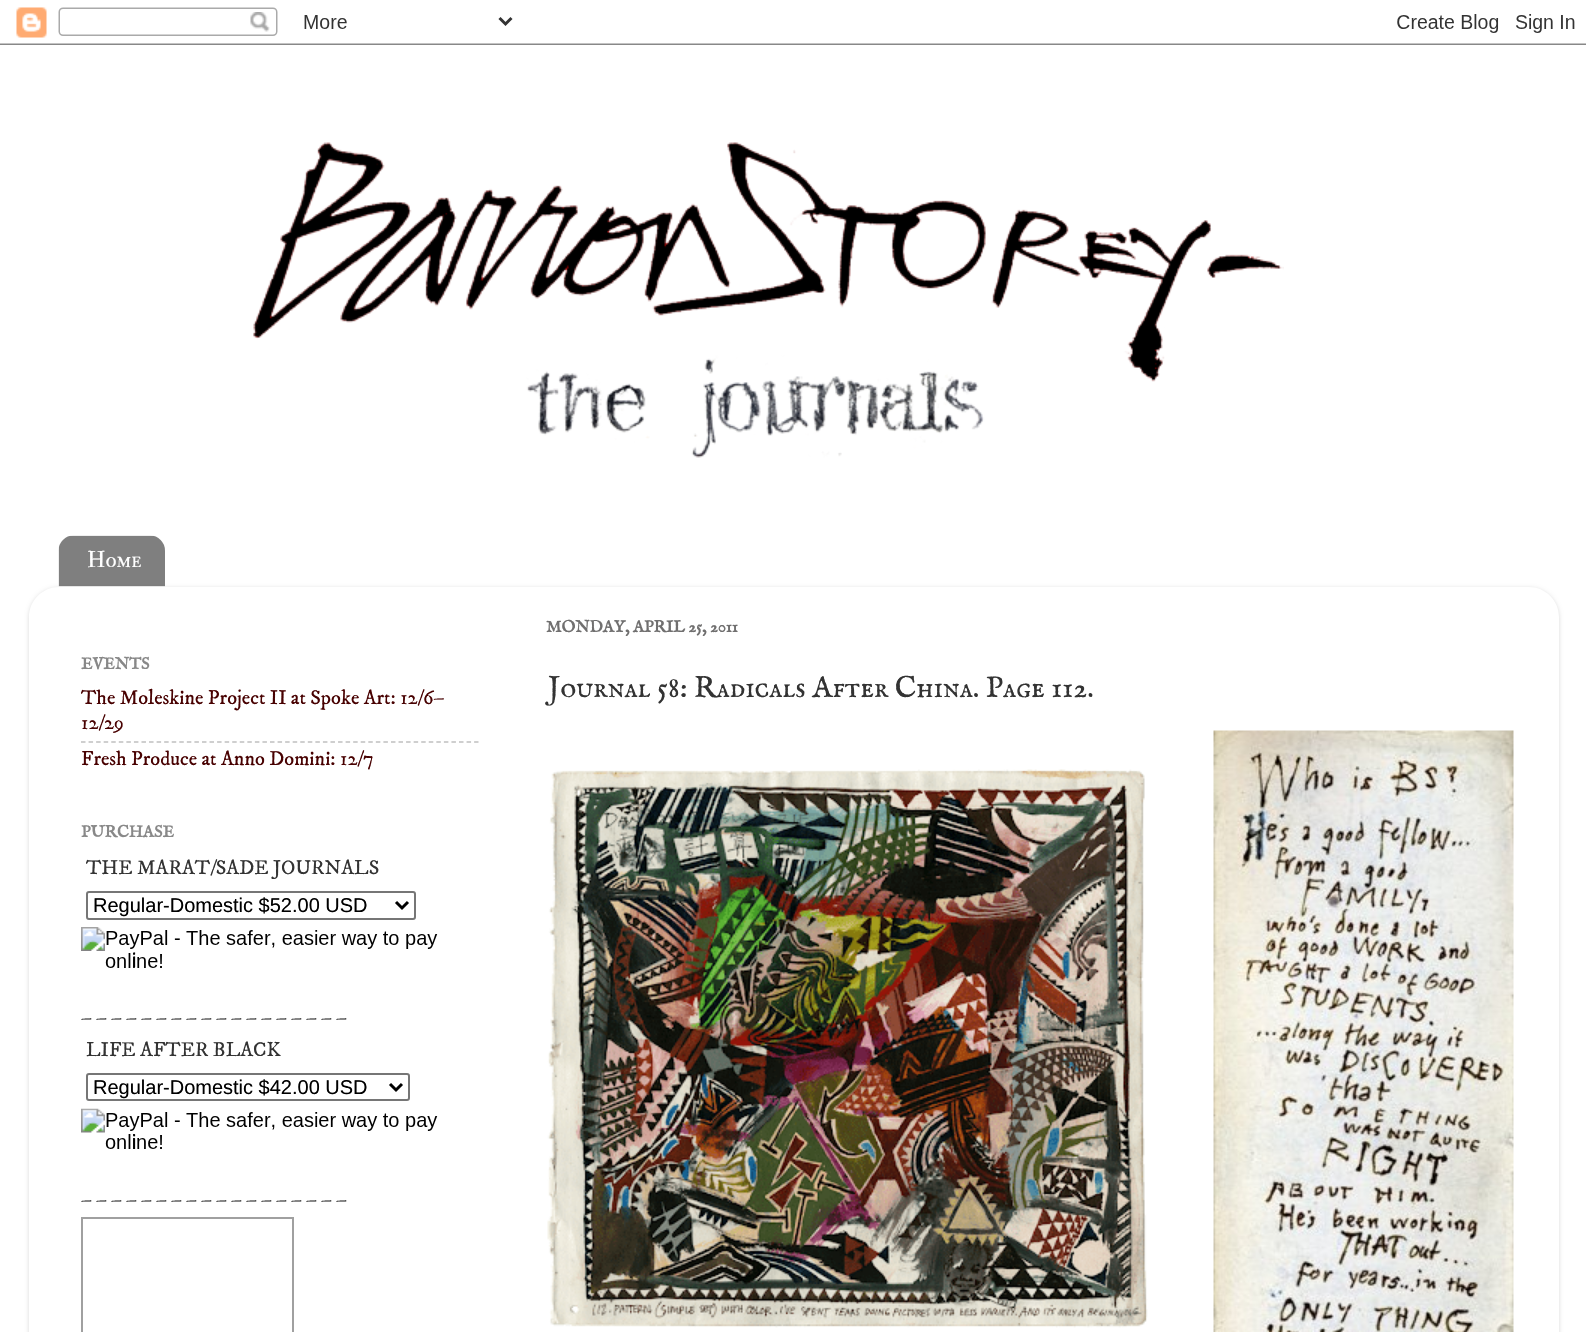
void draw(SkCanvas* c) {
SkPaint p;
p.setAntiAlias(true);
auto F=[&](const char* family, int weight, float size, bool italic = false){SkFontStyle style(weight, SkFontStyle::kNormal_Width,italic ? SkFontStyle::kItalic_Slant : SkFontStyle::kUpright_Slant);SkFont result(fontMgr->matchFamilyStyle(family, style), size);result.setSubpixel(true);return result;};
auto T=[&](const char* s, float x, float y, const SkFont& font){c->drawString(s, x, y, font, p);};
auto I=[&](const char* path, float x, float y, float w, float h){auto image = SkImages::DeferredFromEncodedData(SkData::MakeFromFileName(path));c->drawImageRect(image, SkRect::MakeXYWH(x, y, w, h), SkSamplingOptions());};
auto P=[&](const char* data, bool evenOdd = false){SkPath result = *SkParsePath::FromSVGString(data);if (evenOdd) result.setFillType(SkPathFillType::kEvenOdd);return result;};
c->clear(0xffffffff);
I("1.png",0,7,1586,38);
I("2.png",253,142,1031,316);
I("3.png",58,535,107,52);
auto f1 = F("IM FELL Double Pica SC",400,22.5);
p.setColor(0xffffffff);
T("Home",87,567,f1);
c->save();
c->clipPath(P("M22 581h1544v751h-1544zm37 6h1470c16.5 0 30 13.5 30 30v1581h-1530v-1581c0-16.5 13.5-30 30-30z",true),true);
p.setColor(0x26000000);
p.setMaskFilter(SkMaskFilter::MakeBlur(kNormal_SkBlurStyle, 2));
c->drawRoundRect(SkRect::MakeXYWH(29,588,1530,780),30,30,p);
p.setMaskFilter(nullptr);
c->restore();
auto f2 = F("IM FELL English SC",700,16.5);
p.setColor(0xff888888);
T("EVENTS",81,669,f2);
auto f3 = F("IM FELL DW Pica",400,20.25);
p.setColor(0xff480101);
T("The Moleskine Project II at Spoke Art: 12/6–",81,704,f3);
T("12/29",81,729,f3);
p.setStroke(true);
p.setStrokeWidth(1.5);
p.setColor(0xffc0c0c0);
p.setPathEffect(SkDashPathEffect::Make({{4.5f,3.06f}}, 0));
c->drawPath(P("M81 742h397.5"),p);
p.setPathEffect(nullptr);
p.setStroke(false);
p.setColor(0xff480101);
T("Fresh Produce at Anno Domini: 12/7",81,765,f3);
p.setColor(0xff888888);
T("PURCHASE",81,837,f2);
p.setColor(0xff333333);
T("THE MARAT/SADE JOURNALS",86,874,f3);
p.setStroke(true);
p.setStrokeWidth(2);
p.setColor(0xff767676);
c->drawRoundRect(SkRect::MakeXYWH(87,892,328,27),2,2,p);
p.setStrokeWidth(3);
p.setColor(0xff000000);
c->drawPath(P("M396 902l6 6l6-6"),p);
auto f4 = F("Liberation Sans",400,20);
p.setStroke(false);
T("Regular-Domestic $52.00 USD",93,912,f4);
I("4.png",81,927,357,41);
T("i",132,967,f4);
p.setColor(0xff333333);
T("– – – – – – – – – – – – – – – – – –",81,1024,f3);
T("LIFE AFTER BLACK",86,1056,f3);
p.setStroke(true);
p.setStrokeWidth(2);
p.setColor(0xff767676);
c->drawRoundRect(SkRect::MakeXYWH(87,1074,322,26),2,2,p);
p.setStrokeWidth(3);
p.setColor(0xff000000);
c->drawPath(P("M390 1084l6 6l6-6"),p);
p.setStroke(false);
T("Regular-Domestic $42.00 USD",93,1094,f4);
I("5.png",81,1108,357,41);
T("i",132,1149,f4);
p.setColor(0xff333333);
T("– – – – – – – – – – – – – – – – – –",81,1206,f3);
p.setStroke(true);
p.setStrokeWidth(2);
p.setColor(0xffa0a0a0);
c->drawRect(SkRect::MakeXYWH(82,1218,211,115),p);
p.setStroke(false);
p.setColor(0xff706f6f);
T("MONDAY, APRIL 25, 2011",546,632,f2);
auto f5 = F("IM FELL English SC",400,30);
p.setColor(0xff333333);
T("Journal 58: Radicals After China. Page 112.",548,697,f5);
I("6.png",547,769,601,559);
I("7.png",1213,730,301,602);
}
